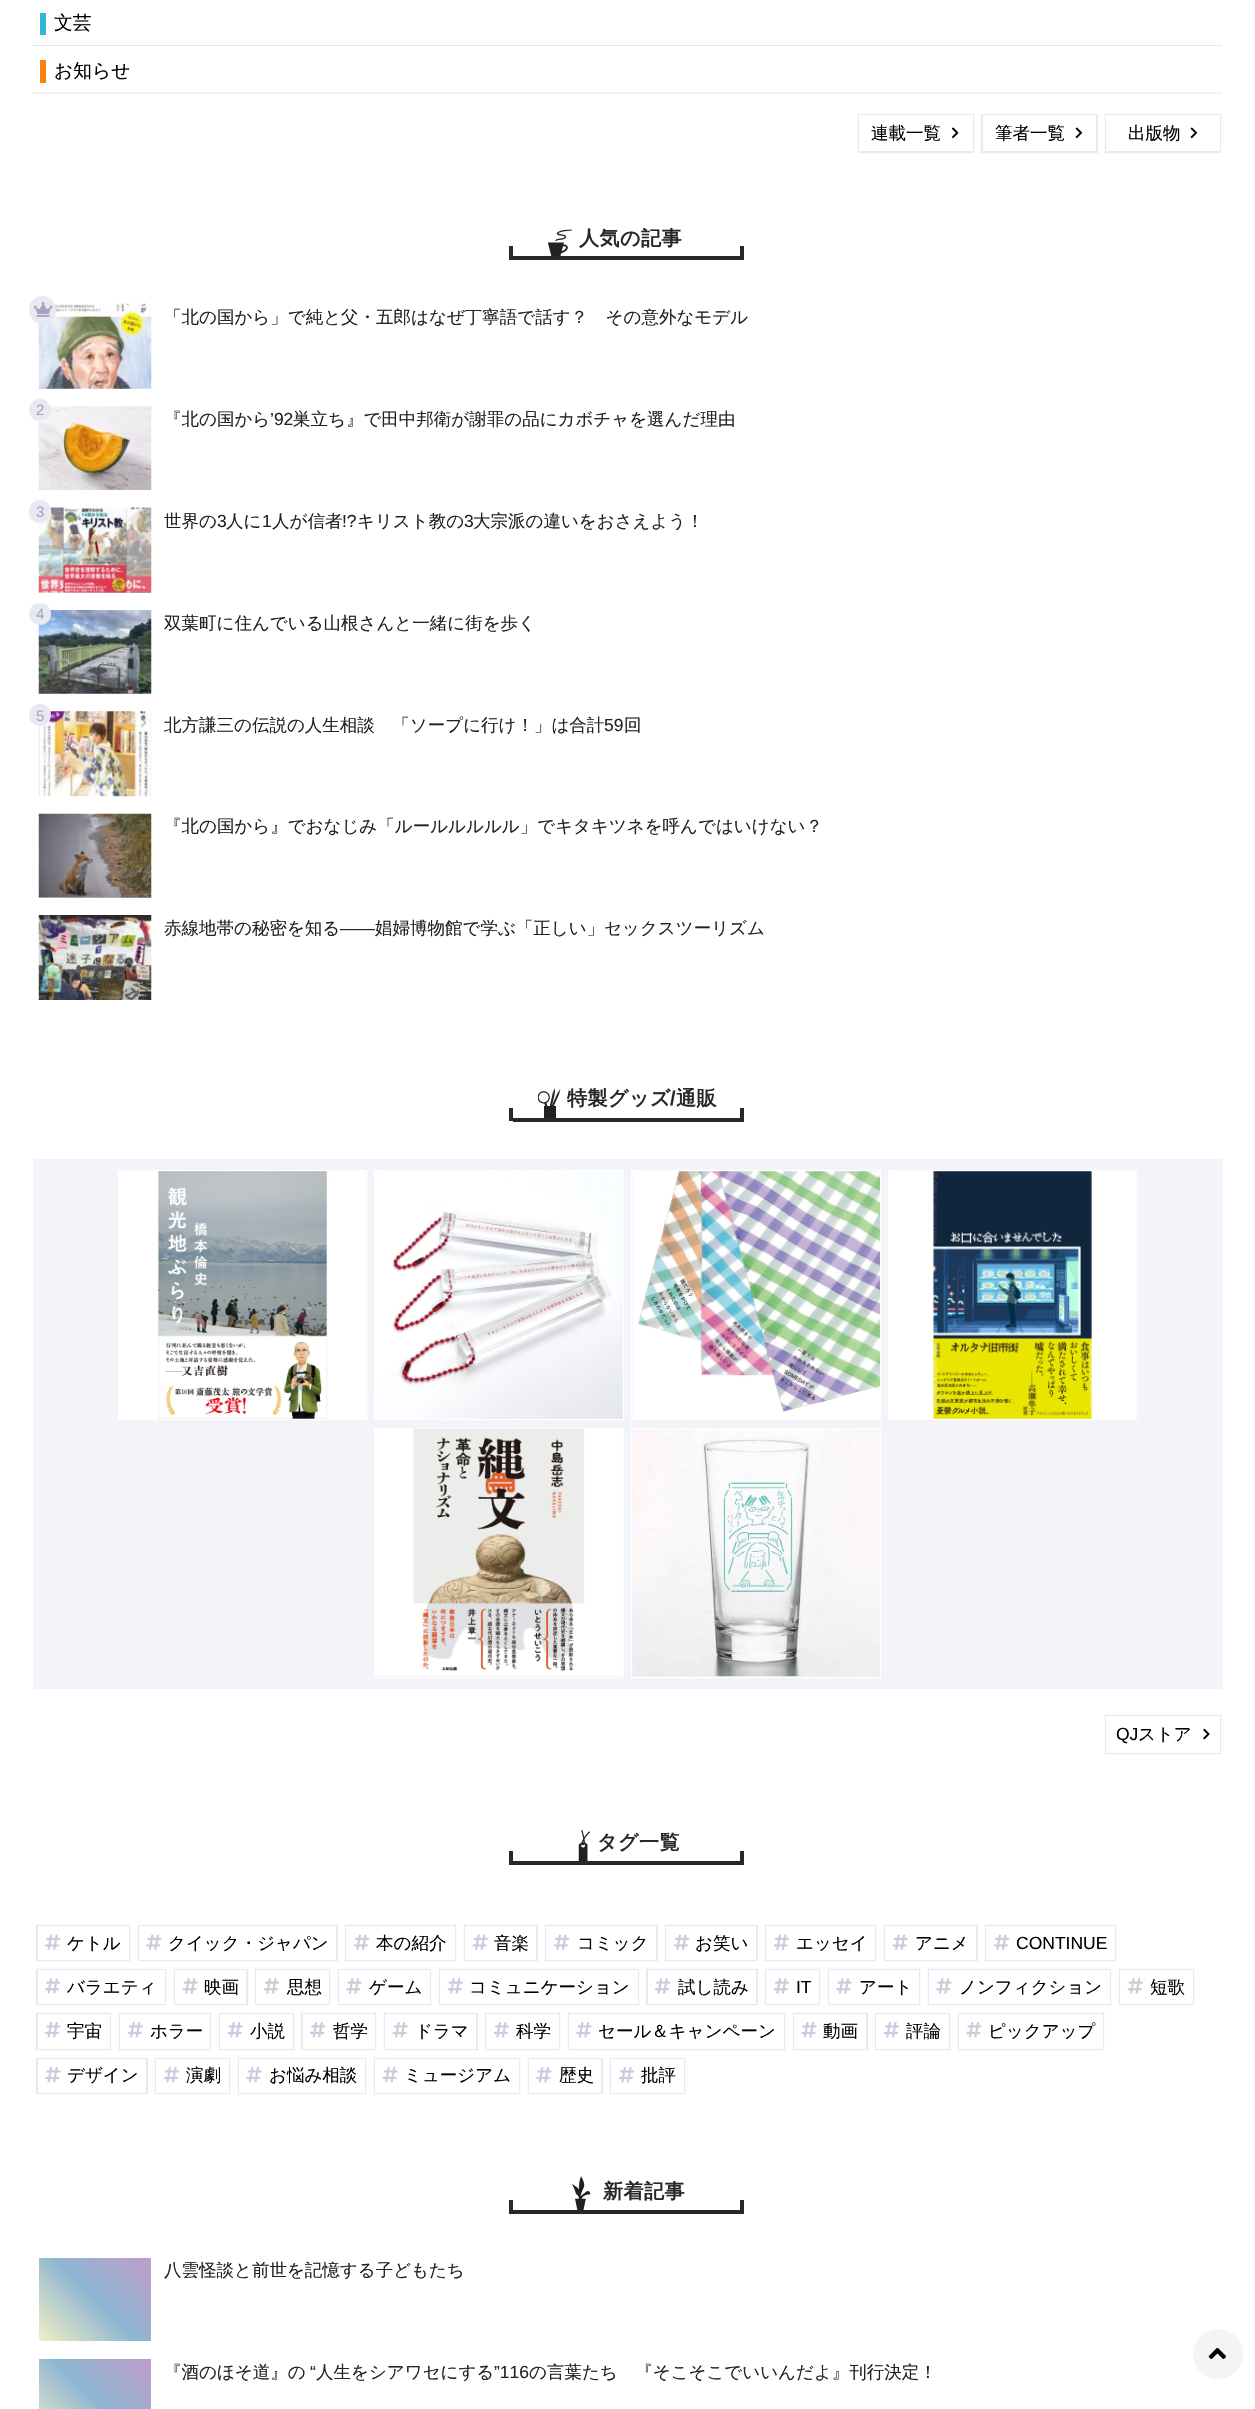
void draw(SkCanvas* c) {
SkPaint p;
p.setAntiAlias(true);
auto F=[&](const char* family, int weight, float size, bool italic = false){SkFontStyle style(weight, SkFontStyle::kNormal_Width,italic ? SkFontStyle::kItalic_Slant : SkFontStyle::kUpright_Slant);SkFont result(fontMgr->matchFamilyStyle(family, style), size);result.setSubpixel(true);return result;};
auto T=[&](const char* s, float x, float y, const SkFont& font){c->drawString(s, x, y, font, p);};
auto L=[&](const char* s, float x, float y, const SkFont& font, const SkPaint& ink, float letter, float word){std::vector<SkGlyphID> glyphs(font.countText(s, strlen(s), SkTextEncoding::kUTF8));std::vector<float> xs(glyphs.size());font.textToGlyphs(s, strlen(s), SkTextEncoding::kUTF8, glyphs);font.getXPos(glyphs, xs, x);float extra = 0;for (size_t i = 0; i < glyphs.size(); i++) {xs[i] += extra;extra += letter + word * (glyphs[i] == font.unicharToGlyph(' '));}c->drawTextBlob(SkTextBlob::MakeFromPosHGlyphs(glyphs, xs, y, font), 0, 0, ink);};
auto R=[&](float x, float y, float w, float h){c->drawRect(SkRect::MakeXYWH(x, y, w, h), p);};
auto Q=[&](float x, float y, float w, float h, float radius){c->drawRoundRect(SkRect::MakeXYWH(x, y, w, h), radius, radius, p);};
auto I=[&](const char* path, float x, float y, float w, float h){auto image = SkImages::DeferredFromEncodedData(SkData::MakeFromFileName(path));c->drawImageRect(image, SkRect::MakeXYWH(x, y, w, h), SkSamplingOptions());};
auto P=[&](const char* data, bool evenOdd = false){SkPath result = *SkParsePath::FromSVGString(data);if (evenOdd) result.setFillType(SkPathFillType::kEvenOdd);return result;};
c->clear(0xffffffff);
p.setStroke(true);
p.setStrokeWidth(1.2);
p.setColor(0xffcecadd);
p.setPathEffect(SkDashPathEffect::Make({{1.25f,1.25f}}, 0));
c->drawPath(P("M32.5 45.5h1190"),p);
p.setPathEffect(nullptr);
p.setStroke(false);
p.setColor(0xff2ab9d1);
R(40,13,6,22);
auto f1 = F("WenQuanYi Zen Hei",500,18.75);
p.setColor(0xff000000);
T("文芸",54,29,f1);
p.setStroke(true);
p.setColor(0xffcecadd);
p.setPathEffect(SkDashPathEffect::Make({{1.25f,1.25f}}, 0));
c->drawPath(P("M32.5 93h1190"),p);
p.setPathEffect(nullptr);
p.setStroke(false);
p.setColor(0xfff68312);
R(40,60,6,23);
p.setColor(0xff000000);
T("お知らせ",54,77,f1);
c->save();
c->clipPath(P("M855 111h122v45h-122zm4 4h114v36h-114z",true),true);
p.setColor(0xffe9e9f4);
p.setMaskFilter(SkMaskFilter::MakeBlur(kNormal_SkBlurStyle, .5));
c->drawRect(SkRect::MakeXYWH(858,114,116,39),p);
p.setMaskFilter(nullptr);
c->restore();
auto f2 = F("WenQuanYi Zen Hei",500,17.5);
p.setColor(0xff000000);
T("連載一覧",871,139,f2);
I("1.png",952,127,7,12);
c->save();
c->clipPath(P("M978 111h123v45h-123zm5 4h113v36h-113z",true),true);
p.setColor(0xffe9e9f4);
p.setMaskFilter(SkMaskFilter::MakeBlur(kNormal_SkBlurStyle, .5));
c->drawRect(SkRect::MakeXYWH(981,114,117,39),p);
p.setMaskFilter(nullptr);
c->restore();
p.setColor(0xff000000);
T("筆者一覧",995,139,f2);
I("2.png",1075,127,8,12);
c->save();
c->clipPath(P("M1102 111h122v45h-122zm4 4h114v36h-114z",true),true);
p.setColor(0xffe9e9f4);
p.setMaskFilter(SkMaskFilter::MakeBlur(kNormal_SkBlurStyle, .5));
c->drawRect(SkRect::MakeXYWH(1105,114,116,39),p);
p.setMaskFilter(nullptr);
c->restore();
p.setColor(0xff000000);
T("出版物",1128,139,f2);
I("2.png",1190,127,8,12);
p.setColor(0xff282828);
R(513,256,231,4);
I("3.png",547,229,25,27);
auto f3 = F("WenQuanYi Zen Hei",700,20);
L("人気の記事",579,245,f3,p,.5,0);
R(740,246,4,14);
R(509,246,4,14);
I("5.png",38,303,114,86);
p.setColor(0xffe9e9f4);
Q(29,296,27,28,13.5);
I("4.png",33,301,20,16);
p.setColor(0xff222222);
T("「北の国から」で純と父・五郎はなぜ丁寧語で話す？　その意外なモデル",164,323,f2);
I("6.png",38,406,114,84);
p.setColor(0xffe9e9f4);
c->drawCircle(40,410,11,p);
auto f4 = F("Liberation Sans",400,15);
p.setColor(0xffa7a3c1);
T("2",36,415,f4);
p.setColor(0xff222222);
T("『北の国から",164,425,f2);
auto f5 = F("Liberation Sans",400,17.5);
T("’92",270,425,f5);
T("巣立ち』で田中邦衛が謝罪の品にカボチャを選んだ理由",293,425,f2);
{
const SkColor colors[] = {0xfffef3c4,0xff8cb6d2,0xffc69ac9};
const float stops[] = {0,.5,1};
const SkPoint ends[] = {{46,609}, {155,500}};
p.setShader(SkGradientShader::MakeLinear(ends, colors, stops, 3, SkTileMode::kClamp));
p.setAlpha(255);
}
R(39,508,112,85);
I("7.png",38,507,114,86);
p.setShader(nullptr);
p.setColor(0xffe9e9f4);
Q(29,500,22,23,11);
p.setColor(0xffa7a3c1);
T("3",36,517,f4);
p.setColor(0xff222222);
T("世界の",164,527,f2);
T("3",217,527,f5);
T("人に",226,527,f2);
T("1",262,527,f5);
T("人が信者",272,527,f2);
T("!?",342,527,f5);
T("キリスト教の",357,527,f2);
T("3",464,527,f5);
T("大宗派の違いをおさえよう！",473,527,f2);
I("8.png",38,610,114,84);
p.setColor(0xffe9e9f4);
c->drawCircle(40,614,11,p);
p.setColor(0xffa7a3c1);
T("4",36,619,f4);
p.setColor(0xff222222);
T("双葉町に住んでいる山根さんと一緒に街を歩く",164,629,f2);
I("9.png",38,711,114,86);
p.setColor(0xffe9e9f4);
c->drawCircle(40,715,11,p);
p.setColor(0xffa7a3c1);
T("5",36,721,f4);
p.setColor(0xff222222);
T("北方謙三の伝説の人生相談　「ソープに行け！」は合計",164,731,f2);
T("59",604,731,f5);
T("回",624,731,f2);
{
const SkColor colors[] = {0xfffef3c4,0xff8cb6d2,0xffc69ac9};
const float stops[] = {0,.5,1};
const SkPoint ends[] = {{47,914}, {155,806}};
p.setShader(SkGradientShader::MakeLinear(ends, colors, stops, 3, SkTileMode::kClamp));
p.setAlpha(255);
}
R(39,814,112,84);
I("10.png",38,813,114,85);
p.setShader(nullptr);
p.setColor(0xff222222);
T("『北の国から』でおなじみ「ルールルルルル」でキタキツネを呼んではいけない？",164,832,f2);
I("11.png",38,915,114,85);
T("赤線地帯の秘密を知る",164,934,f2);
T("――",340,934,f5);
T("娼婦博物館で学ぶ「正しい」セックスツーリズム",375,934,f2);
p.setColor(0xff282828);
R(513,1118,231,4);
I("12.png",538,1088,23,30);
L("特製グッズ",567,1105,f3,p,.5,0);
auto f6 = F("Liberation Sans",700,20);
L("/",670,1105,f6,p,.5,0);
L("通販",676,1105,f3,p,.5,0);
R(740,1108,4,13);
R(509,1108,4,13);
p.setColor(0xfff2f4f9);
R(33,1159,1190,530);
p.setStroke(true);
p.setStrokeWidth(1);
p.setColor(0xffffffff);
c->drawRect(SkRect::MakeXYWH(118.5,1170.5,249,249),p);
c->drawRect(SkRect::MakeXYWH(374.5,1170.5,249,249),p);
c->drawRect(SkRect::MakeXYWH(631.5,1170.5,249,249),p);
c->drawRect(SkRect::MakeXYWH(888.5,1170.5,249,249),p);
I("13.png",119,1171,247,248);
I("14.png",375,1171,248,248);
I("15.png",632,1171,248,248);
I("16.png",889,1171,247,248);
c->drawRect(SkRect::MakeXYWH(374.5,1428.5,249,249),p);
I("17.png",375,1428,248,248);
c->drawRect(SkRect::MakeXYWH(631.5,1428.5,249,249),p);
I("18.png",632,1429,248,248);
c->save();
c->clipPath(P("M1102 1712h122v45h-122zm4 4h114v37h-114z",true),true);
p.setStroke(false);
p.setColor(0xffe9e9f4);
p.setMaskFilter(SkMaskFilter::MakeBlur(kNormal_SkBlurStyle, .5));
c->drawRect(SkRect::MakeXYWH(1105,1715,116,39),p);
p.setMaskFilter(nullptr);
c->restore();
p.setColor(0xff000000);
T("QJ",1116,1740,f5);
T("ストア",1138,1740,f2);
I("19.png",1203,1728,7,12);
p.setColor(0xff282828);
R(513,1861,231,4);
I("20.png",578,1830,12,31);
L("タグ一覧",597,1849,f3,p,.5,0);
R(740,1851,4,14);
R(509,1851,4,14);
c->save();
c->clipPath(P("M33 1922h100v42h-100zm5 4h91v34h-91z",true),true);
p.setColor(0xffe9e9f4);
p.setMaskFilter(SkMaskFilter::MakeBlur(kNormal_SkBlurStyle, .5));
c->drawRect(SkRect::MakeXYWH(36,1925,94,36),p);
p.setMaskFilter(nullptr);
c->restore();
I("21.png",45,1934,16,16);
p.setColor(0xff000000);
T("ケトル",67,1949,f2);
c->save();
c->clipPath(P("M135 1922h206v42h-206zm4 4h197v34h-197z",true),true);
p.setColor(0xffe9e9f4);
p.setMaskFilter(SkMaskFilter::MakeBlur(kNormal_SkBlurStyle, .5));
c->drawRect(SkRect::MakeXYWH(138,1925,200,36),p);
p.setMaskFilter(nullptr);
c->restore();
I("22.png",146,1934,16,16);
p.setColor(0xff000000);
T("クイック・ジャパン",168,1949,f2);
c->save();
c->clipPath(P("M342 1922h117v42h-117zm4 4h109v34h-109z",true),true);
p.setColor(0xffe9e9f4);
p.setMaskFilter(SkMaskFilter::MakeBlur(kNormal_SkBlurStyle, .5));
c->drawRect(SkRect::MakeXYWH(345,1925,111,36),p);
p.setMaskFilter(nullptr);
c->restore();
I("23.png",353,1934,16,16);
p.setColor(0xff000000);
T("本の紹介",376,1949,f2);
c->save();
c->clipPath(P("M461 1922h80v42h-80zm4 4h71v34h-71z",true),true);
p.setColor(0xffe9e9f4);
p.setMaskFilter(SkMaskFilter::MakeBlur(kNormal_SkBlurStyle, .5));
c->drawRect(SkRect::MakeXYWH(464,1925,74,36),p);
p.setMaskFilter(nullptr);
c->restore();
I("24.png",472,1934,16,16);
p.setColor(0xff000000);
T("音楽",494,1949,f2);
c->save();
c->clipPath(P("M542 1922h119v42h-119zm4 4h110v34h-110z",true),true);
p.setColor(0xffe9e9f4);
p.setMaskFilter(SkMaskFilter::MakeBlur(kNormal_SkBlurStyle, .5));
c->drawRect(SkRect::MakeXYWH(545,1925,113,36),p);
p.setMaskFilter(nullptr);
c->restore();
I("23.png",553,1934,16,16);
p.setColor(0xff000000);
T("コミック",577,1949,f2);
c->save();
c->clipPath(P("M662 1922h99v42h-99zm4 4h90v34h-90z",true),true);
p.setColor(0xffe9e9f4);
p.setMaskFilter(SkMaskFilter::MakeBlur(kNormal_SkBlurStyle, .5));
c->drawRect(SkRect::MakeXYWH(665,1925,93,36),p);
p.setMaskFilter(nullptr);
c->restore();
I("23.png",673,1934,16,16);
p.setColor(0xff000000);
T("お笑い",695,1949,f2);
c->save();
c->clipPath(P("M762 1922h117v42h-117zm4 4h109v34h-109z",true),true);
p.setColor(0xffe9e9f4);
p.setMaskFilter(SkMaskFilter::MakeBlur(kNormal_SkBlurStyle, .5));
c->drawRect(SkRect::MakeXYWH(765,1925,111,36),p);
p.setMaskFilter(nullptr);
c->restore();
I("23.png",773,1934,16,16);
p.setColor(0xff000000);
T("エッセイ",796,1949,f2);
c->save();
c->clipPath(P("M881 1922h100v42h-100zm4 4h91v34h-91z",true),true);
p.setColor(0xffe9e9f4);
p.setMaskFilter(SkMaskFilter::MakeBlur(kNormal_SkBlurStyle, .5));
c->drawRect(SkRect::MakeXYWH(884,1925,94,36),p);
p.setMaskFilter(nullptr);
c->restore();
I("24.png",892,1934,16,16);
p.setColor(0xff000000);
T("アニメ",915,1949,f2);
c->save();
c->clipPath(P("M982 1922h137v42h-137zm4 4h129v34h-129z",true),true);
p.setColor(0xffe9e9f4);
p.setMaskFilter(SkMaskFilter::MakeBlur(kNormal_SkBlurStyle, .5));
c->drawRect(SkRect::MakeXYWH(985,1925,131,36),p);
p.setMaskFilter(nullptr);
c->restore();
I("23.png",993,1934,16,16);
p.setColor(0xff000000);
T("CONTINUE",1016,1949,f5);
c->save();
c->clipPath(P("M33 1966h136v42h-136zm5 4h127v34h-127z",true),true);
p.setColor(0xffe9e9f4);
p.setMaskFilter(SkMaskFilter::MakeBlur(kNormal_SkBlurStyle, .5));
c->drawRect(SkRect::MakeXYWH(36,1969,130,36),p);
p.setMaskFilter(nullptr);
c->restore();
I("25.png",45,1978,16,16);
p.setColor(0xff000000);
T("バラエティ",67,1993,f2);
c->save();
c->clipPath(P("M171 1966h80v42h-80zm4 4h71v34h-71z",true),true);
p.setColor(0xffe9e9f4);
p.setMaskFilter(SkMaskFilter::MakeBlur(kNormal_SkBlurStyle, .5));
c->drawRect(SkRect::MakeXYWH(174,1969,74,36),p);
p.setMaskFilter(nullptr);
c->restore();
I("26.png",182,1978,16,16);
p.setColor(0xff000000);
T("映画",204,1993,f2);
c->save();
c->clipPath(P("M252 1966h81v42h-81zm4 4h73v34h-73z",true),true);
p.setColor(0xffe9e9f4);
p.setMaskFilter(SkMaskFilter::MakeBlur(kNormal_SkBlurStyle, .5));
c->drawRect(SkRect::MakeXYWH(255,1969,75,36),p);
p.setMaskFilter(nullptr);
c->restore();
I("27.png",263,1978,16,16);
p.setColor(0xff000000);
T("思想",287,1993,f2);
c->save();
c->clipPath(P("M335 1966h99v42h-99zm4 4h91v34h-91z",true),true);
p.setColor(0xffe9e9f4);
p.setMaskFilter(SkMaskFilter::MakeBlur(kNormal_SkBlurStyle, .5));
c->drawRect(SkRect::MakeXYWH(338,1969,93,36),p);
p.setMaskFilter(nullptr);
c->restore();
I("28.png",346,1978,16,16);
p.setColor(0xff000000);
T("ゲーム",369,1993,f2);
c->save();
c->clipPath(P("M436 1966h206v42h-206zm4 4h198v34h-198z",true),true);
p.setColor(0xffe9e9f4);
p.setMaskFilter(SkMaskFilter::MakeBlur(kNormal_SkBlurStyle, .5));
c->drawRect(SkRect::MakeXYWH(439,1969,200,36),p);
p.setMaskFilter(nullptr);
c->restore();
I("26.png",447,1978,16,16);
p.setColor(0xff000000);
T("コミュニケーション",469,1993,f2);
c->save();
c->clipPath(P("M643 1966h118v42h-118zm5 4h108v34h-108z",true),true);
p.setColor(0xffe9e9f4);
p.setMaskFilter(SkMaskFilter::MakeBlur(kNormal_SkBlurStyle, .5));
c->drawRect(SkRect::MakeXYWH(646,1969,112,36),p);
p.setMaskFilter(nullptr);
c->restore();
I("25.png",655,1978,16,16);
p.setColor(0xff000000);
T("試し読み",678,1993,f2);
c->save();
c->clipPath(P("M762 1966h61v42h-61zm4 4h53v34h-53z",true),true);
p.setColor(0xffe9e9f4);
p.setMaskFilter(SkMaskFilter::MakeBlur(kNormal_SkBlurStyle, .5));
c->drawRect(SkRect::MakeXYWH(765,1969,55,36),p);
p.setMaskFilter(nullptr);
c->restore();
I("27.png",773,1978,16,16);
p.setColor(0xff000000);
T("IT",796,1993,f5);
c->save();
c->clipPath(P("M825 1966h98v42h-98zm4 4h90v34h-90z",true),true);
p.setColor(0xffe9e9f4);
p.setMaskFilter(SkMaskFilter::MakeBlur(kNormal_SkBlurStyle, .5));
c->drawRect(SkRect::MakeXYWH(828,1969,92,36),p);
p.setMaskFilter(nullptr);
c->restore();
I("28.png",836,1978,16,16);
p.setColor(0xff000000);
T("アート",859,1993,f2);
c->save();
c->clipPath(P("M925 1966h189v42h-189zm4 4h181v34h-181z",true),true);
p.setColor(0xffe9e9f4);
p.setMaskFilter(SkMaskFilter::MakeBlur(kNormal_SkBlurStyle, .5));
c->drawRect(SkRect::MakeXYWH(928,1969,183,36),p);
p.setMaskFilter(nullptr);
c->restore();
I("28.png",936,1978,16,16);
p.setColor(0xff000000);
T("ノンフィクション",959,1993,f2);
c->save();
c->clipPath(P("M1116 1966h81v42h-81zm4 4h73v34h-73z",true),true);
p.setColor(0xffe9e9f4);
p.setMaskFilter(SkMaskFilter::MakeBlur(kNormal_SkBlurStyle, .5));
c->drawRect(SkRect::MakeXYWH(1119,1969,75,36),p);
p.setMaskFilter(nullptr);
c->restore();
I("26.png",1127,1978,16,16);
p.setColor(0xff000000);
T("短歌",1150,1993,f2);
c->save();
c->clipPath(P("M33 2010h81v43h-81zm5 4h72v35h-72z",true),true);
p.setColor(0xffe9e9f4);
p.setMaskFilter(SkMaskFilter::MakeBlur(kNormal_SkBlurStyle, .5));
c->drawRect(SkRect::MakeXYWH(36,2013,75,37),p);
p.setMaskFilter(nullptr);
c->restore();
I("29.png",45,2022,16,16);
p.setColor(0xff000000);
T("宇宙",67,2037,f2);
c->save();
c->clipPath(P("M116 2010h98v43h-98zm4 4h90v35h-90z",true),true);
p.setColor(0xffe9e9f4);
p.setMaskFilter(SkMaskFilter::MakeBlur(kNormal_SkBlurStyle, .5));
c->drawRect(SkRect::MakeXYWH(119,2013,92,37),p);
p.setMaskFilter(nullptr);
c->restore();
I("30.png",127,2022,16,16);
p.setColor(0xff000000);
T("ホラー",150,2037,f2);
c->save();
c->clipPath(P("M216 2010h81v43h-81zm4 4h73v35h-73z",true),true);
p.setColor(0xffe9e9f4);
p.setMaskFilter(SkMaskFilter::MakeBlur(kNormal_SkBlurStyle, .5));
c->drawRect(SkRect::MakeXYWH(219,2013,75,37),p);
p.setMaskFilter(nullptr);
c->restore();
I("30.png",227,2022,16,16);
p.setColor(0xff000000);
T("小説",250,2037,f2);
c->save();
c->clipPath(P("M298 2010h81v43h-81zm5 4h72v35h-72z",true),true);
p.setColor(0xffe9e9f4);
p.setMaskFilter(SkMaskFilter::MakeBlur(kNormal_SkBlurStyle, .5));
c->drawRect(SkRect::MakeXYWH(301,2013,75,37),p);
p.setMaskFilter(nullptr);
c->restore();
I("29.png",310,2022,16,16);
p.setColor(0xff000000);
T("哲学",333,2037,f2);
c->save();
c->clipPath(P("M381 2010h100v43h-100zm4 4h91v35h-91z",true),true);
p.setColor(0xffe9e9f4);
p.setMaskFilter(SkMaskFilter::MakeBlur(kNormal_SkBlurStyle, .5));
c->drawRect(SkRect::MakeXYWH(384,2013,94,37),p);
p.setMaskFilter(nullptr);
c->restore();
I("30.png",392,2022,16,16);
p.setColor(0xff000000);
T("ドラマ",415,2037,f2);
c->save();
c->clipPath(P("M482 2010h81v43h-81zm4 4h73v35h-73z",true),true);
p.setColor(0xffe9e9f4);
p.setMaskFilter(SkMaskFilter::MakeBlur(kNormal_SkBlurStyle, .5));
c->drawRect(SkRect::MakeXYWH(485,2013,75,37),p);
p.setMaskFilter(nullptr);
c->restore();
I("31.png",493,2022,16,16);
p.setColor(0xff000000);
T("科学",516,2037,f2);
c->save();
c->clipPath(P("M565 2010h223v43h-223zm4 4h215v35h-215z",true),true);
p.setColor(0xffe9e9f4);
p.setMaskFilter(SkMaskFilter::MakeBlur(kNormal_SkBlurStyle, .5));
c->drawRect(SkRect::MakeXYWH(568,2013,217,37),p);
p.setMaskFilter(nullptr);
c->restore();
I("32.png",576,2022,16,16);
p.setColor(0xff000000);
T("セール＆キャンペーン",598,2037,f2);
c->save();
c->clipPath(P("M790 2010h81v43h-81zm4 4h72v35h-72z",true),true);
p.setColor(0xffe9e9f4);
p.setMaskFilter(SkMaskFilter::MakeBlur(kNormal_SkBlurStyle, .5));
c->drawRect(SkRect::MakeXYWH(793,2013,75,37),p);
p.setMaskFilter(nullptr);
c->restore();
I("32.png",801,2022,16,16);
p.setColor(0xff000000);
T("動画",823,2037,f2);
c->save();
c->clipPath(P("M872 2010h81v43h-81zm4 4h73v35h-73z",true),true);
p.setColor(0xffe9e9f4);
p.setMaskFilter(SkMaskFilter::MakeBlur(kNormal_SkBlurStyle, .5));
c->drawRect(SkRect::MakeXYWH(875,2013,75,37),p);
p.setMaskFilter(nullptr);
c->restore();
I("31.png",883,2022,16,16);
p.setColor(0xff000000);
T("評論",906,2037,f2);
c->save();
c->clipPath(P("M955 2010h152v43h-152zm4 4h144v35h-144z",true),true);
p.setColor(0xffe9e9f4);
p.setMaskFilter(SkMaskFilter::MakeBlur(kNormal_SkBlurStyle, .5));
c->drawRect(SkRect::MakeXYWH(958,2013,146,37),p);
p.setMaskFilter(nullptr);
c->restore();
I("32.png",966,2022,16,16);
p.setColor(0xff000000);
T("ピックアップ",988,2037,f2);
c->save();
c->clipPath(P("M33 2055h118v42h-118zm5 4h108v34h-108z",true),true);
p.setColor(0xffe9e9f4);
p.setMaskFilter(SkMaskFilter::MakeBlur(kNormal_SkBlurStyle, .5));
c->drawRect(SkRect::MakeXYWH(36,2058,112,36),p);
p.setMaskFilter(nullptr);
c->restore();
I("29.png",45,2067,16,16);
p.setColor(0xff000000);
T("デザイン",67,2081,f2);
c->save();
c->clipPath(P("M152 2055h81v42h-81zm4 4h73v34h-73z",true),true);
p.setColor(0xffe9e9f4);
p.setMaskFilter(SkMaskFilter::MakeBlur(kNormal_SkBlurStyle, .5));
c->drawRect(SkRect::MakeXYWH(155,2058,75,36),p);
p.setMaskFilter(nullptr);
c->restore();
I("31.png",163,2067,16,16);
p.setColor(0xff000000);
T("演劇",186,2081,f2);
c->save();
c->clipPath(P("M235 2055h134v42h-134zm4 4h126v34h-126z",true),true);
p.setColor(0xffe9e9f4);
p.setMaskFilter(SkMaskFilter::MakeBlur(kNormal_SkBlurStyle, .5));
c->drawRect(SkRect::MakeXYWH(238,2058,128,36),p);
p.setMaskFilter(nullptr);
c->restore();
I("32.png",246,2067,16,16);
p.setColor(0xff000000);
T("お悩み相談",269,2081,f2);
c->save();
c->clipPath(P("M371 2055h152v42h-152zm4 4h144v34h-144z",true),true);
p.setColor(0xffe9e9f4);
p.setMaskFilter(SkMaskFilter::MakeBlur(kNormal_SkBlurStyle, .5));
c->drawRect(SkRect::MakeXYWH(374,2058,146,36),p);
p.setMaskFilter(nullptr);
c->restore();
I("30.png",382,2067,16,16);
p.setColor(0xff000000);
T("ミュージアム",404,2081,f2);
c->save();
c->clipPath(P("M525 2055h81v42h-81zm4 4h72v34h-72z",true),true);
p.setColor(0xffe9e9f4);
p.setMaskFilter(SkMaskFilter::MakeBlur(kNormal_SkBlurStyle, .5));
c->drawRect(SkRect::MakeXYWH(528,2058,75,36),p);
p.setMaskFilter(nullptr);
c->restore();
I("32.png",536,2067,16,16);
p.setColor(0xff000000);
T("歴史",559,2081,f2);
c->save();
c->clipPath(P("M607 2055h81v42h-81zm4 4h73v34h-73z",true),true);
p.setColor(0xffe9e9f4);
p.setMaskFilter(SkMaskFilter::MakeBlur(kNormal_SkBlurStyle, .5));
c->drawRect(SkRect::MakeXYWH(610,2058,75,36),p);
p.setMaskFilter(nullptr);
c->restore();
I("31.png",618,2067,16,16);
p.setColor(0xff000000);
T("批評",641,2081,f2);
p.setColor(0xff282828);
R(513,2210,231,4);
I("33.png",572,2176,19,34);
L("新着記事",603,2198,f3,p,.5,0);
R(740,2200,4,14);
R(509,2200,4,14);
{
const SkColor colors[] = {0xfffef3c4,0xff8cb6d2,0xffc69ac9};
const float stops[] = {0,.5,1};
const SkPoint ends[] = {{47,2358}, {155,2250}};
p.setShader(SkGradientShader::MakeLinear(ends, colors, stops, 3, SkTileMode::kClamp));
p.setAlpha(255);
}
R(39,2258,112,83);
p.setShader(nullptr);
p.setColor(0xff222222);
T("八雲怪談と前世を記憶する子どもたち",164,2276,f2);
{
const SkColor colors[] = {0xfffef3c4,0xff8cb6d2,0xffc69ac9};
const float stops[] = {0,.5,1};
const SkPoint ends[] = {{46,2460}, {155,2351}};
p.setShader(SkGradientShader::MakeLinear(ends, colors, stops, 3, SkTileMode::kClamp));
p.setAlpha(255);
}
R(39,2359,112,50);
p.setShader(nullptr);
p.setColor(0xff222222);
T("『酒のほそ道』の",164,2378,f2);
T("“",310,2378,f5);
T("人生をシアワセにする",316,2378,f2);
T("”116",494,2378,f5);
T("の言葉たち　『そこそこでいいんだよ』刊行決定！",529,2378,f2);
p.setColor(0xfff4f4f4);
c->drawCircle(1218,2354,25,p);
I("34.png",1208,2347,18,12);
}
